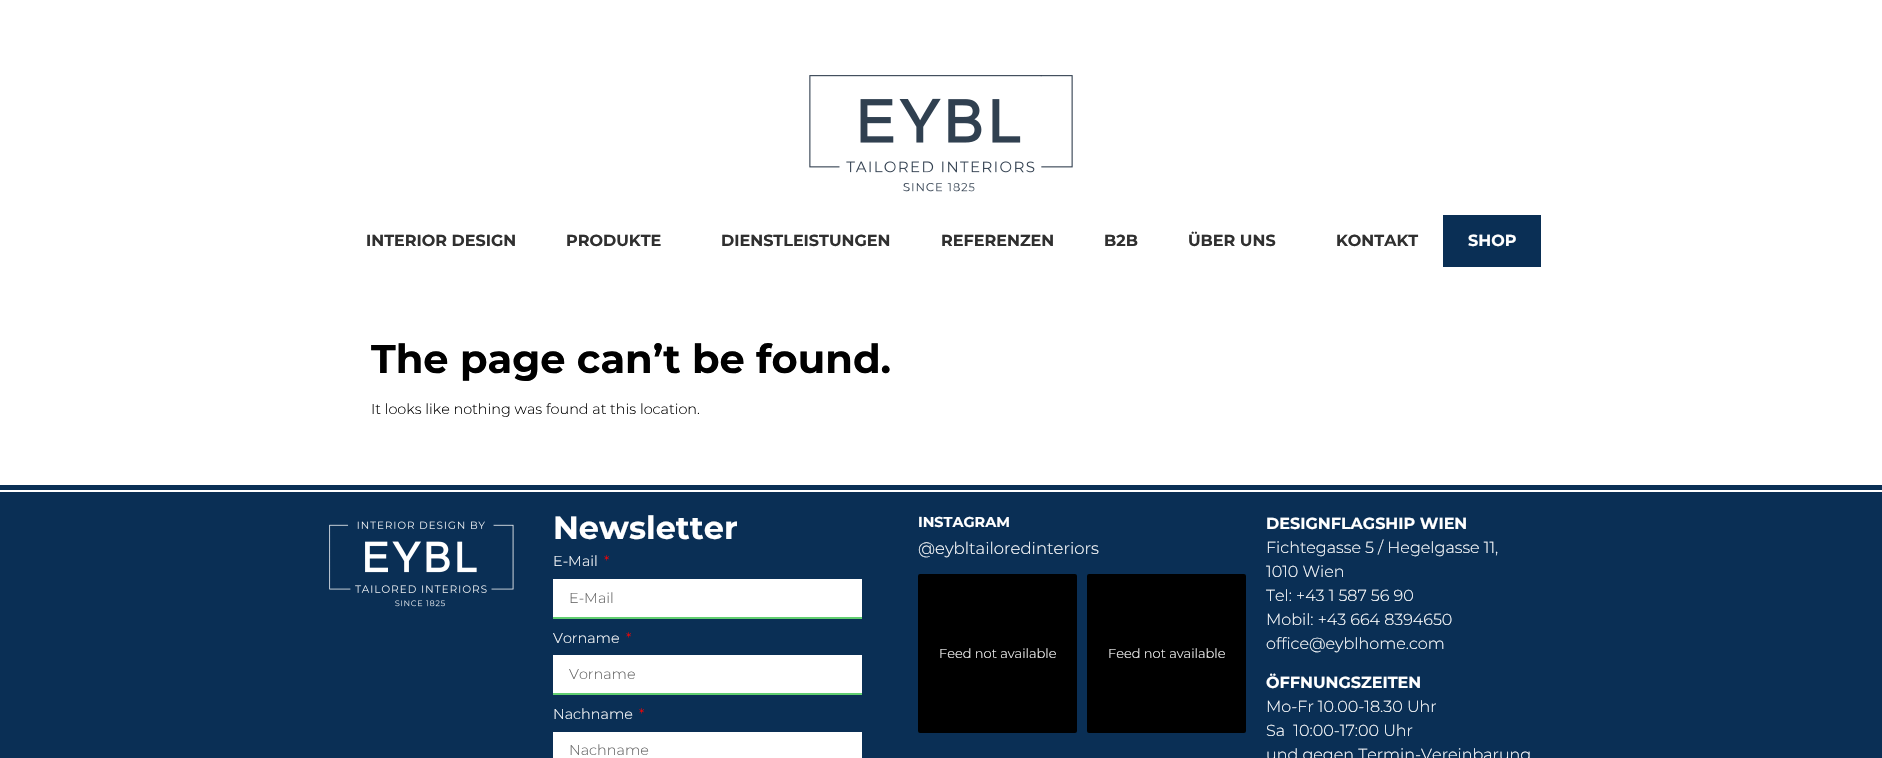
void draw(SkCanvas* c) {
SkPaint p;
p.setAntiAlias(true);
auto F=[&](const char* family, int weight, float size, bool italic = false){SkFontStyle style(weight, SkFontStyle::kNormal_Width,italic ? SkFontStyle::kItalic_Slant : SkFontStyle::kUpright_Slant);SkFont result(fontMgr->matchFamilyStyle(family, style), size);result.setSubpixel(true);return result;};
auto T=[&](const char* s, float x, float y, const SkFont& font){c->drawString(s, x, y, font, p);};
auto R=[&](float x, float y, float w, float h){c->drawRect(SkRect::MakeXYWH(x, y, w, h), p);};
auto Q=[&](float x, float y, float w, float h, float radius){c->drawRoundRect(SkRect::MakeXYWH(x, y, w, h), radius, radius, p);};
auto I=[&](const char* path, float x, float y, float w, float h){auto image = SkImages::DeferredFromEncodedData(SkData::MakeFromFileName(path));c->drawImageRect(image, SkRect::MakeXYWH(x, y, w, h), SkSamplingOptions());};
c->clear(0xffffffff);
I("1.png",809,75,264,117);
auto f1 = F("Montserrat",700,16);
p.setColor(0xff303030);
T("INTERIOR DESIGN",366,246,f1);
T("PRODUKTE",566,246,f1);
T("DIENSTLEISTUNGEN",721,246,f1);
T("REFERENZEN",941,246,f1);
T("B2B",1104,246,f1);
T("ÜBER UNS",1188,246,f1);
T("KONTAKT",1336,246,f1);
p.setColor(0xff0a2f55);
R(1443,215,98,52);
p.setColor(0xffffffff);
T("SHOP",1468,246,f1);
auto f2 = F("Montserrat",700,40);
p.setColor(0xff000000);
T("The page can’t be found.",371,373,f2);
auto f3 = F("Montserrat",300,14.4);
T("It looks like nothing was found at this location.",371,414,f3);
p.setColor(0xff0a2f55);
R(0,485,1882,5);
R(0,492,1882,266);
I("2.png",329,521,185,86);
auto f4 = F("Montserrat",700,32);
p.setColor(0xffffffff);
T("Newsletter",553,539,f4);
T("E-Mail",553,566,f3);
p.setColor(0xffff0000);
T("*",604,566,f3);
p.setColor(0xffffffff);
R(553,579,309,38);
p.setColor(0xff61ce70);
R(553,617,309,2);
p.setColor(0xff666666);
T("E-Mail",569,603,f3);
p.setColor(0xffffffff);
T("Vorname",553,643,f3);
p.setColor(0xffff0000);
T("*",626,643,f3);
p.setColor(0xffffffff);
R(553,655,309,38);
p.setColor(0xff61ce70);
R(553,693,309,2);
p.setColor(0xff666666);
T("Vorname",569,679,f3);
p.setColor(0xffffffff);
T("Nachname",553,719,f3);
p.setColor(0xffff0000);
T("*",639,719,f3);
p.setColor(0xffffffff);
R(553,732,309,26);
p.setColor(0xff666666);
T("Nachname",569,755,f3);
auto f5 = F("Montserrat",700,14.4);
p.setColor(0xffffffff);
T("INSTAGRAM",918,527,f5);
auto f6 = F("Montserrat",300,16.5);
T("@eybltailoredinteriors",918,554,f6);
p.setColor(0xff000000);
Q(918,574,159,159,2);
auto f7 = F("Montserrat",300,13);
p.setColor(0xffffffff);
T("Feed not available",939,658,f7);
p.setColor(0xff000000);
Q(1087,574,159,159,2);
p.setColor(0xffffffff);
T("Feed not available",1108,658,f7);
T("DESIGNFLAGSHIP WIEN",1266,529,f1);
auto f8 = F("Montserrat",300,16);
T("Fichtegasse 5 / Hegelgasse 11,",1266,553,f8);
T("1010 Wien",1266,577,f8);
T("Tel: +43 1 587 56 90",1266,601,f8);
T("Mobil: +43 664 8394650",1266,625,f8);
T("office@eyblhome.com",1266,649,f8);
T("ÖFFNUNGSZEITEN",1266,688,f1);
T("Mo-Fr 10.00-18.30 Uhr",1266,712,f8);
T("Sa  10:00-17:00 Uhr",1266,736,f8);
T("und gegen Termin-Vereinbarung",1266,760,f8);
}
